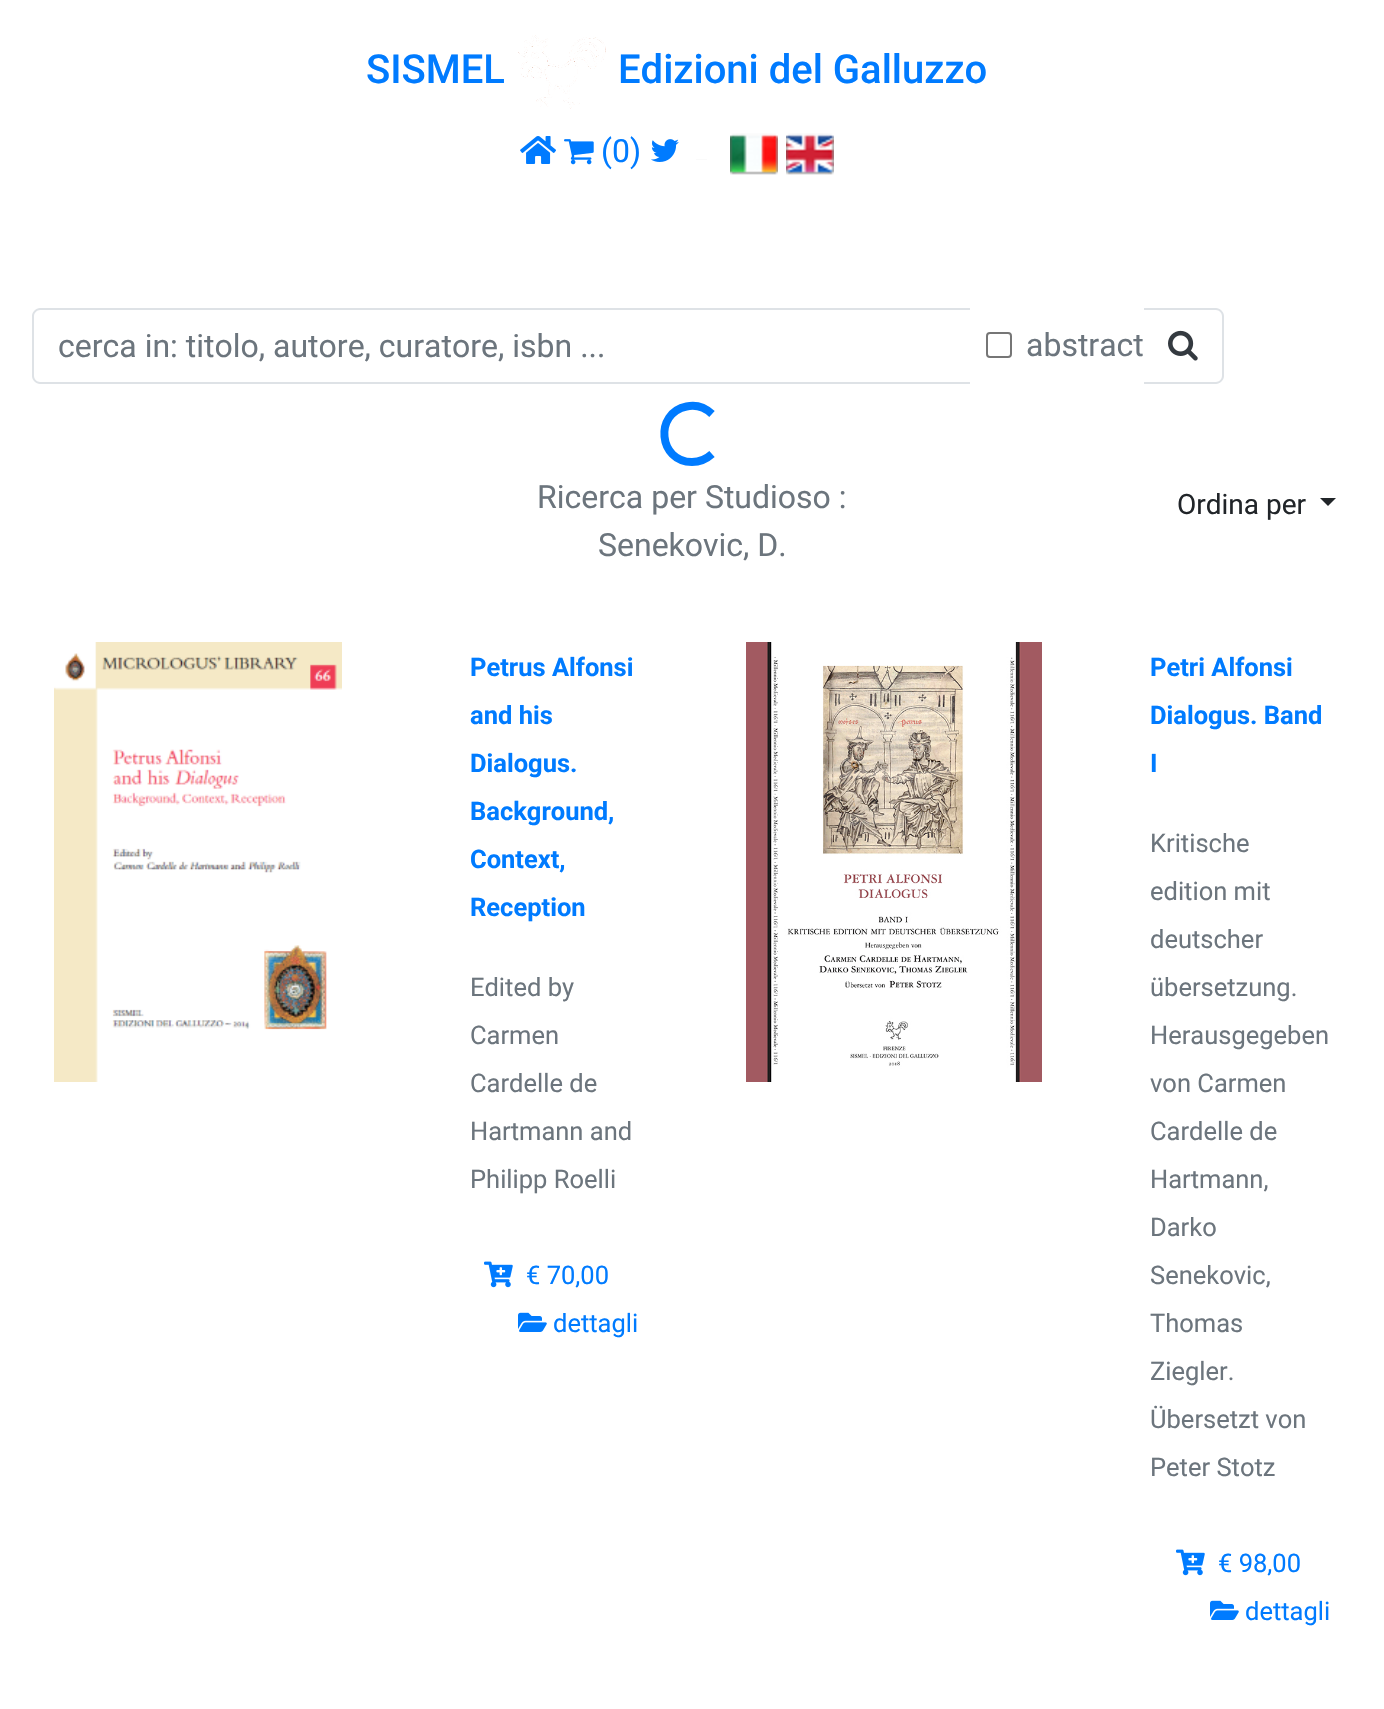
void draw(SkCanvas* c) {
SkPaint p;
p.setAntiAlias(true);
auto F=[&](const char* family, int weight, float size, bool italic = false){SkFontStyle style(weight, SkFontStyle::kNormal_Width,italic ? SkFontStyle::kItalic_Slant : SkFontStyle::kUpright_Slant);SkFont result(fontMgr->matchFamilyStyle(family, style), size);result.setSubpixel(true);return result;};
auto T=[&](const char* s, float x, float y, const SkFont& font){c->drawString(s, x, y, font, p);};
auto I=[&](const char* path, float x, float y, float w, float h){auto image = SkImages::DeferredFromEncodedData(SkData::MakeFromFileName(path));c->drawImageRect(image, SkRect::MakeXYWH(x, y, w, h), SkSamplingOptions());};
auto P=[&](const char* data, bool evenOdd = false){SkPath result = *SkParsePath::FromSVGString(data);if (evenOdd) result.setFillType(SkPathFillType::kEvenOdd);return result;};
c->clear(0xffffffff);
auto f1 = F("Roboto",500,40);
p.setColor(0xff007bff);
T("SISMEL",366,83,f1);
I("1.png",518,35,88,74);
T("Edizioni del Galluzzo",618,83,f1);
I("2.png",520,136,36,28);
I("3.png",564,139,30,26);
auto f2 = F("Roboto",400,32);
T("(0)",601,162,f2);
I("4.png",651,139,28,23);
I("5.png",696,159,11,1);
I("6.png",730,133,48,42);
I("7.png",786,133,48,42);
p.setColor(0xffdee2e6);
c->drawPath(P("M40 308h930v76h-930c-4 0-8-4-8-8v-60c0-4 4-8 8-8zm0 2h930v72h-930c-3 0-6-3-6-6v-60c0-3 3-6 6-6z",true),p);
p.setColor(0xff6c757d);
T("cerca in: titolo, autore, curatore, isbn ...",58,357,f2);
p.setStroke(true);
p.setStrokeWidth(2);
p.setColor(0xff767676);
c->drawRoundRect(SkRect::MakeXYWH(987,333,24,24),3,3,p);
p.setStroke(false);
p.setColor(0xff6c757d);
T("abstract",1026,356,f2);
p.setColor(0xffdee2e6);
c->drawPath(P("M1144 308h72c4 0 8 4 8 8v60c0 4-4 8-8 8h-72zm0 2h72c3 0 6 3 6 6v60c0 3-3 6-6 6h-72z",true),p);
I("8.png",1168,330,30,31);
p.setStroke(true);
p.setStrokeWidth(8);
p.setColor(0xff007bff);
c->drawPath(P("M712 454c-5.5 5-12.5 8-20 8c-33.5 0-38-49-5.5-55.5c9-2 18.5 1 25.5 7.5"),p);
p.setStroke(false);
p.setColor(0xff6c757d);
T("Ricerca per Studioso :",537,508,f2);
T("Senekovic, D.",598,556,f2);
auto f3 = F("Roboto",400,28);
p.setColor(0xff212529);
T("Ordina per",1177,514,f3);
c->drawPath(P("M1320 498h16l-8 8z"),p);
I("9.png",54,642,288,440);
auto f4 = F("Roboto",700,25.5);
p.setColor(0xff007bff);
T("Petrus Alfonsi",470,676,f4);
T("and his",470,724,f4);
T("Dialogus.",470,772,f4);
T("Background,",470,820,f4);
T("Context,",470,868,f4);
T("Reception",470,916,f4);
auto f5 = F("Roboto",400,25.5);
p.setColor(0xff6c757d);
T("Edited by",470,996,f5);
T("Carmen",470,1044,f5);
T("Cardelle de",470,1092,f5);
T("Hartmann and",470,1140,f5);
T("Philipp Roelli",470,1188,f5);
I("10.png",484,1261,29,27);
p.setColor(0xff007bff);
T("€ 70,00",526,1284,f5);
I("11.png",518,1312,29,20);
T("dettagli",553,1332,f5);
I("12.png",746,642,296,440);
T("Petri Alfonsi",1150,676,f4);
T("Dialogus. Band",1150,724,f4);
T("I",1150,772,f4);
p.setColor(0xff6c757d);
T("Kritische",1150,852,f5);
T("edition mit",1150,900,f5);
T("deutscher",1150,948,f5);
T("übersetzung.",1150,996,f5);
T("Herausgegeben",1150,1044,f5);
T("von Carmen",1150,1092,f5);
T("Cardelle de",1150,1140,f5);
T("Hartmann,",1150,1188,f5);
T("Darko",1150,1236,f5);
T("Senekovic,",1150,1284,f5);
T("Thomas",1150,1332,f5);
T("Ziegler.",1150,1380,f5);
T("Übersetzt von",1150,1428,f5);
T("Peter Stotz",1150,1476,f5);
I("10.png",1176,1549,29,27);
p.setColor(0xff007bff);
T("€ 98,00",1218,1572,f5);
I("11.png",1210,1600,29,20);
T("dettagli",1245,1620,f5);
}
